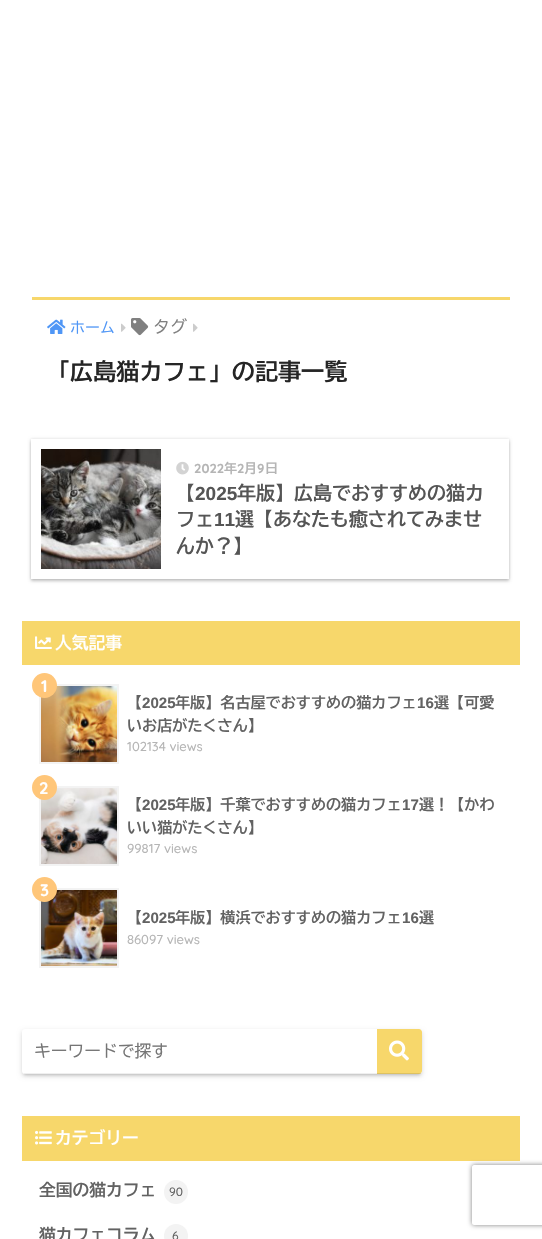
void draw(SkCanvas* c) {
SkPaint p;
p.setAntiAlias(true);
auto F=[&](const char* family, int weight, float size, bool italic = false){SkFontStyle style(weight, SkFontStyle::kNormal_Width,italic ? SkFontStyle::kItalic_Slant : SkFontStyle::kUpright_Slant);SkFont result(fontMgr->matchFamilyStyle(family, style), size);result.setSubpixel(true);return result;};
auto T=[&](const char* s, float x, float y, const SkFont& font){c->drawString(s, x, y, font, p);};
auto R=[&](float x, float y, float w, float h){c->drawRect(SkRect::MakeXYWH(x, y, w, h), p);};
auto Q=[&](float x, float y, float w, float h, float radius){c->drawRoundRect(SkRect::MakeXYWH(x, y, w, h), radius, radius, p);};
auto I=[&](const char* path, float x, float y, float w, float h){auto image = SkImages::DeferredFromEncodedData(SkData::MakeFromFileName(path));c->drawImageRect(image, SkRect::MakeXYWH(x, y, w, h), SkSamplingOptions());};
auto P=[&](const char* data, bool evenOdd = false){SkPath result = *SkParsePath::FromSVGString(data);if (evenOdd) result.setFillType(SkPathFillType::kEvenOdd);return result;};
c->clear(0xffffffff);
p.setColor(0xfff7d76b);
R(32,297,478,3);
I("1.png",47,319,19,15);
auto f1 = F("BIZ UDGothic",400,15);
p.setColor(0xff4f96f6);
T("ホーム",70,333,f1);
I("2.png",121,323,5,9);
I("3.png",131,318,18,18);
auto f2 = F("BIZ UDGothic",400,17);
p.setColor(0xff808080);
T("タグ",153,333,f2);
I("2.png",193,323,5,9);
auto f3 = F("BIZ UDGothic",700,23.1);
p.setColor(0xff252525);
T("「広島猫カフェ」の記事一覧",47,380,f3);
c->save();
c->clipPath(P("M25 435h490v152h-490zm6 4h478v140h-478z",true),true);
p.setColor(0x38000000);
p.setMaskFilter(SkMaskFilter::MakeBlur(kNormal_SkBlurStyle, 1.5));
c->drawRect(SkRect::MakeXYWH(31,441,478,140),p);
p.setMaskFilter(nullptr);
c->restore();
c->save();
c->clipPath(P("M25 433h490v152h-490zm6 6h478v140h-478z",true),true);
p.setColor(0x1f000000);
p.setMaskFilter(SkMaskFilter::MakeBlur(kNormal_SkBlurStyle, 1.5));
c->drawRect(SkRect::MakeXYWH(31,439,478,140),p);
p.setMaskFilter(nullptr);
c->restore();
I("4.png",41,449,120,120);
I("5.png",176,461,13,14);
auto f4 = F("Quicksand",700,13);
p.setColor(0xffb5b5b5);
T("2022",194,473,f4);
auto f5 = F("BIZ UDGothic",700,13);
T("年",224,473,f5);
T("2",237,473,f4);
T("月",244,473,f5);
T("9",257,473,f4);
T("日",265,473,f5);
auto f6 = F("BIZ UDGothic",700,19);
p.setColor(0xff555555);
T("【",176,500,f6);
auto f7 = F("Liberation Sans",700,19);
T("2025",195,500,f7);
T("年版】広島でおすすめの猫カ",237,500,f6);
T("フェ",176,526,f6);
T("11",214,526,f7);
T("選【あなたも癒されてみませ",235,526,f6);
T("んか？】",176,553,f6);
p.setColor(0xfff7d76b);
R(22,621,498,44);
I("6.png",35,636,17,13);
auto f8 = F("BIZ UDGothic",700,16.75);
p.setColor(0xffffffff);
T("人気記事",55,649,f8);
p.setStroke(true);
p.setStrokeWidth(2);
p.setColor(0xfff3f3f3);
c->drawRect(SkRect::MakeXYWH(40,685,78,78),p);
I("7.png",41,686,76,76);
p.setStroke(false);
p.setColor(0xffffc679);
c->drawCircle(44.5,685.5,12.5,p);
auto f9 = F("Quicksand",700,16.75);
p.setColor(0xffffffff);
T("1",41,692,f9);
auto f10 = F("BIZ UDGothic",700,15.1);
p.setColor(0xff626262);
T("【",127,708,f10);
auto f11 = F("Liberation Sans",700,15.1);
T("2025",142,708,f11);
T("年版】名古屋でおすすめの猫カフェ",175,708,f10);
T("16",417,708,f11);
T("選【可愛",434,708,f10);
T("いお店がたくさん】",127,731,f10);
auto f12 = F("Quicksand",500,13);
p.setColor(0xffb5b5b5);
T("102134 views",127,751,f12);
p.setStroke(true);
p.setColor(0xfff3f3f3);
c->drawRect(SkRect::MakeXYWH(40,787,78,78),p);
I("8.png",41,788,76,76);
p.setStroke(false);
p.setColor(0xffffc679);
c->drawCircle(44.5,787.5,12.5,p);
p.setColor(0xffffffff);
T("2",39,794,f9);
p.setColor(0xff626262);
T("【",127,810,f10);
T("2025",142,810,f11);
T("年版】千葉でおすすめの猫カフェ",175,810,f10);
T("17",402,810,f11);
T("選！【かわ",419,810,f10);
T("いい猫がたくさん】",127,833,f10);
p.setColor(0xffb5b5b5);
T("99817 views",127,853,f12);
p.setStroke(true);
p.setColor(0xfff3f3f3);
c->drawRect(SkRect::MakeXYWH(40,889,78,78),p);
I("9.png",41,890,76,76);
p.setStroke(false);
p.setColor(0xffffc679);
c->drawCircle(44.5,889.5,12.5,p);
p.setColor(0xffffffff);
T("3",40,896,f9);
p.setColor(0xff626262);
T("【",127,923,f10);
T("2025",142,923,f11);
T("年版】横浜でおすすめの猫カフェ",175,923,f10);
T("16",402,923,f11);
T("選",419,923,f10);
p.setColor(0xffb5b5b5);
T("86097 views",127,944,f12);
p.setColor(0x26000000);
p.setMaskFilter(SkMaskFilter::MakeBlur(kNormal_SkBlurStyle, 1.5));
c->drawRoundRect(SkRect::MakeXYWH(24,1034,396,41),1,1,p);
p.setMaskFilter(nullptr);
p.setMaskFilter(SkMaskFilter::MakeBlur(kNormal_SkBlurStyle, 2.5));
c->drawRoundRect(SkRect::MakeXYWH(22,1031,400,45),3,3,p);
p.setMaskFilter(nullptr);
p.setColor(0xffffffff);
Q(22,1029,400,45,3);
p.setColor(0xffefefef);
R(24,1073,397,1);
auto f13 = F("BIZ UDGothic",400,16.75);
p.setColor(0xff757575);
T("キーワードで探す",34,1057,f13);
p.setColor(0xfff7d76b);
c->drawPath(P("M377 1029h42c1.5 0 3 1.5 3 3v39c0 1.5-1.5 3-3 3h-42z"),p);
p.setColor(0x1a000000);
R(377,1073,44,1);
I("10.png",389,1040,20,21);
p.setColor(0xfff7d76b);
R(22,1116,498,45);
I("11.png",35,1130,17,15);
p.setColor(0xffffffff);
T("カテゴリー",55,1144,f8);
p.setColor(0xff626262);
T("全国の猫カフェ",39,1196,f8);
p.setColor(0xfff3f3f3);
c->drawCircle(176,1192,12,p);
auto f14 = F("Quicksand",500,12);
p.setColor(0xff626262);
T("90",169,1196,f14);
T("猫カフェコラム",39,1241,f8);
p.setColor(0xfff3f3f3);
c->drawCircle(176,1236,12,p);
p.setColor(0xff626262);
T("6",172,1240,f14);
c->save();
c->clipPath(P("M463 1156h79v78h-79zm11 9h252c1 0 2 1 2 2v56c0 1-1 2-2 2h-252c-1 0-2-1-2-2v-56c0-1 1-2 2-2z",true),true);
p.setColor(0xff808080);
p.setMaskFilter(SkMaskFilter::MakeBlur(kNormal_SkBlurStyle, 2.5));
c->drawRoundRect(SkRect::MakeXYWH(472,1165,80,60),2,2,p);
p.setMaskFilter(nullptr);
c->restore();
}
